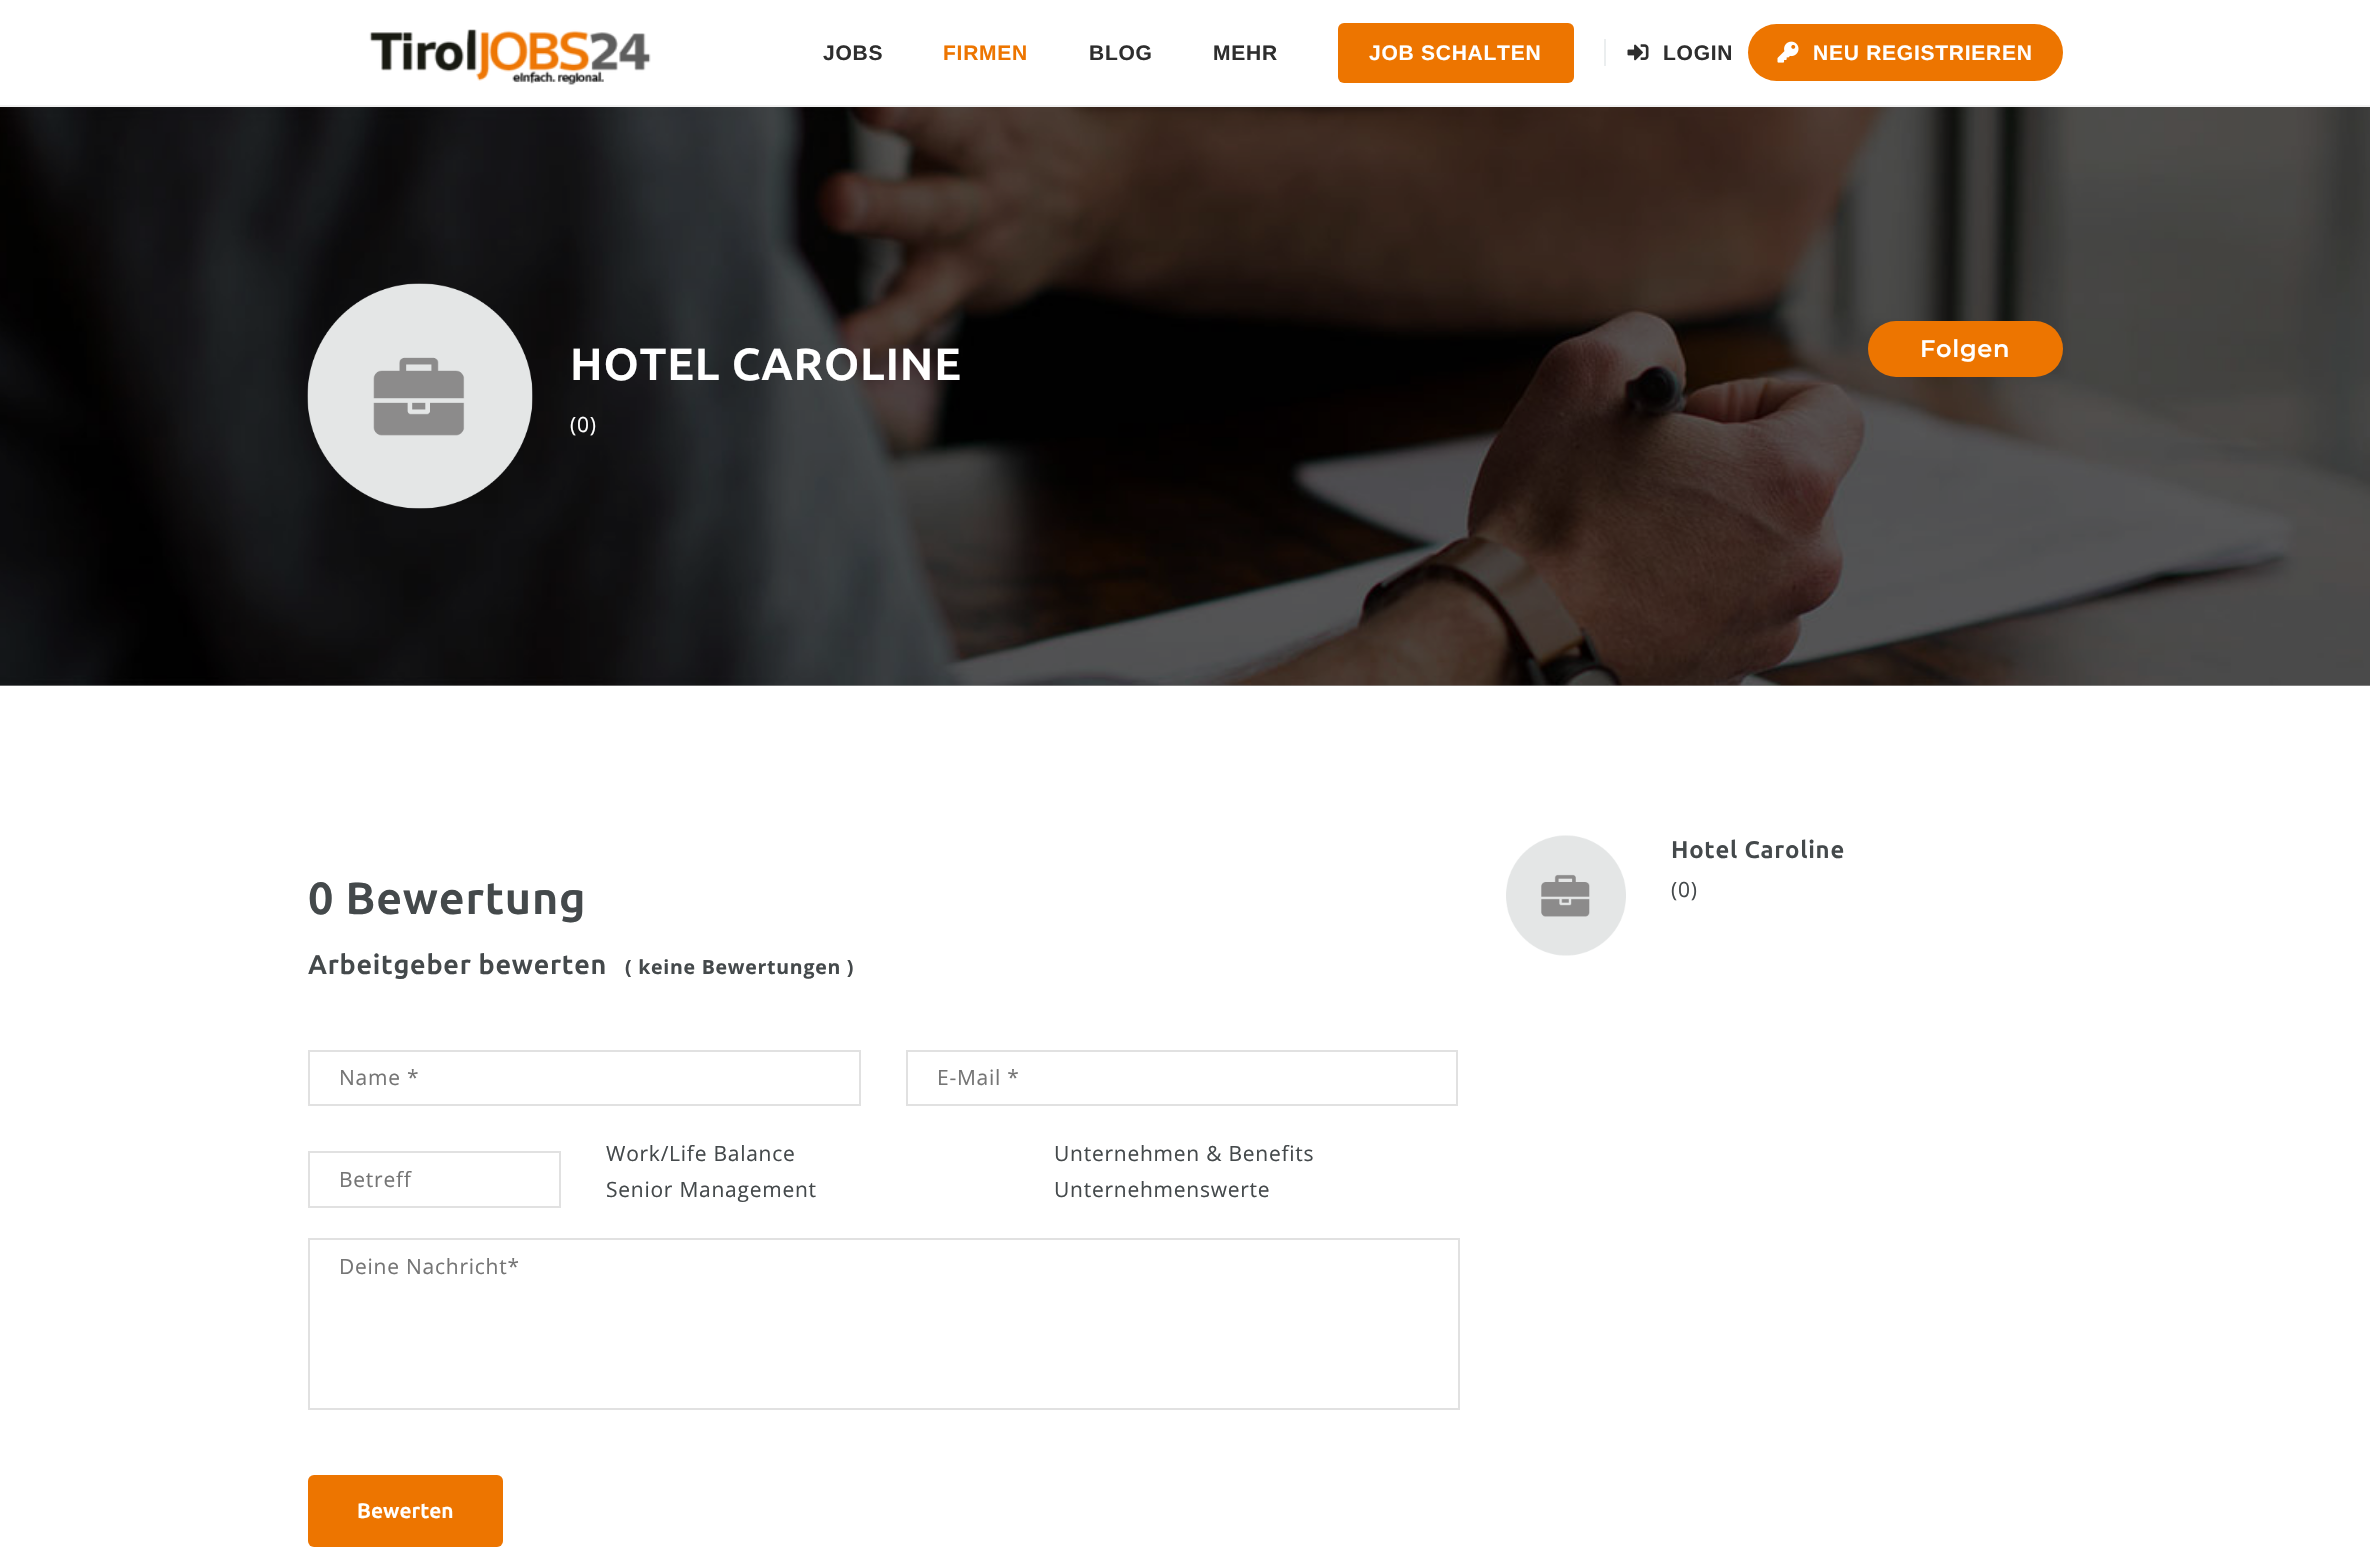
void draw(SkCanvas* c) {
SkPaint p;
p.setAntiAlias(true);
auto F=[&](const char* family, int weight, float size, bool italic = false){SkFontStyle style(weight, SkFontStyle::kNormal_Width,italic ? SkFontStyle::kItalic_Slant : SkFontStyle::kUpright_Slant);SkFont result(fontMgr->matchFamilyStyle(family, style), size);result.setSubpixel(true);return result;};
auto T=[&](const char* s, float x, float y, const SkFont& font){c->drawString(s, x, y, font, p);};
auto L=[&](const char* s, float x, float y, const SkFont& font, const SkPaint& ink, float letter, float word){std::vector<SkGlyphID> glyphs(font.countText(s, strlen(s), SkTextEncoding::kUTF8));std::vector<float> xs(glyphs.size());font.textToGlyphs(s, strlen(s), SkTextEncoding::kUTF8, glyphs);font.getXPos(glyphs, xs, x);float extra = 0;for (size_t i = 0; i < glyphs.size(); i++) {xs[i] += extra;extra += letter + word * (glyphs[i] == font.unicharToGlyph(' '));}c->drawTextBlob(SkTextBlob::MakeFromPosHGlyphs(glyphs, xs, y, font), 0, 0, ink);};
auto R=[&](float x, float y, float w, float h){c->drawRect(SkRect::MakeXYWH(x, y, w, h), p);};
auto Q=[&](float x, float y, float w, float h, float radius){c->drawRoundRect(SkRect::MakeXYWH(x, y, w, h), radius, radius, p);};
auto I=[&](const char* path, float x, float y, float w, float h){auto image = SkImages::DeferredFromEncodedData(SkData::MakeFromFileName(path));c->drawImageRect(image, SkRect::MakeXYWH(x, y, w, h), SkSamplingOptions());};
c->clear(0xffffffff);
p.setColor(0xffb3b3b3);
R(0,685,2370,1);
p.setColor(0xfff2f2f2);
R(0,105,2370,2);
I("1.png",369,29,282,56);
auto f1 = F("Liberation Sans",700,21);
p.setColor(0xff2e2e2e);
L("JOBS",823,60,f1,p,.75,0);
p.setColor(0xffed7500);
L("FIRMEN",943,60,f1,p,.75,0);
p.setColor(0xff2e2e2e);
L("BLOG",1089,60,f1,p,.75,0);
L("MEHR",1213,60,f1,p,.75,0);
p.setColor(0xffed7500);
Q(1338,23,236,60,6);
p.setColor(0xffffffff);
L("JOB SCHALTEN",1369,60,f1,p,.75,0);
p.setColor(0xffebeeef);
R(1604,39,2,27);
I("2.png",1627,44,22,17);
p.setColor(0xff2e2e2e);
L("LOGIN",1663,60,f1,p,.75,0);
p.setColor(0xffed7500);
Q(1748,24,315,57,28.5);
I("3.png",1777,41,22,22);
p.setColor(0xffffffff);
L("NEU REGISTRIEREN",1813,60,f1,p,.75,0);
I("4.png",0,107,2370,579);
I("5.png",307,283,226,226);
auto f2 = F("Ubuntu",700,45);
L("HOTEL CAROLINE",570,380,f2,p,.75,0);
auto f3 = F("Open Sans",400,21);
L("(0)",570,432,f3,p,.75,0);
p.setColor(0xffed7500);
Q(1868,321,195,56,28);
auto f4 = F("Montserrat",600,24);
p.setColor(0xffffffff);
L("Folgen",1920,357,f4,p,.75,0);
I("6.png",1506,835,120,121);
auto f5 = F("Ubuntu",700,24);
p.setColor(0xff44494b);
L("Hotel Caroline",1671,858,f5,p,.75,0);
L("(0)",1671,897,f3,p,.75,0);
L("0 Bewertung",308,914,f2,p,.75,0);
auto f6 = F("Ubuntu",700,27);
L("Arbeitgeber bewerten",308,974,f6,p,.75,0);
auto f7 = F("Open Sans",700,19.5);
L("( keine Bewertungen )",625,974,f7,p,.75,0);
p.setStroke(true);
p.setStrokeWidth(2);
p.setColor(0xffe1e1e1);
c->drawRect(SkRect::MakeXYWH(309,1051,551,54),p);
p.setStroke(false);
p.setColor(0xff757575);
L("Name *",339,1085,f3,p,.75,0);
p.setStroke(true);
p.setColor(0xffe1e1e1);
c->drawRect(SkRect::MakeXYWH(907,1051,550,54),p);
p.setStroke(false);
p.setColor(0xff757575);
L("E-Mail *",937,1085,f3,p,.75,0);
p.setStroke(true);
p.setColor(0xffe1e1e1);
c->drawRect(SkRect::MakeXYWH(309,1152,251,55),p);
p.setStroke(false);
p.setColor(0xff757575);
L("Betreff",339,1187,f3,p,.75,0);
p.setColor(0xff44494b);
L("Work/Life Balance",606,1161,f3,p,.75,0);
L("Unternehmen & Benefits",1054,1161,f3,p,.75,0);
L("Senior Management",606,1197,f3,p,.75,0);
L("Unternehmenswerte",1054,1197,f3,p,.75,0);
p.setStroke(true);
p.setColor(0xffe1e1e1);
c->drawRect(SkRect::MakeXYWH(309,1239,1150,170),p);
p.setStroke(false);
p.setColor(0xff757575);
L("Deine Nachricht*",339,1274,f3,p,.75,0);
p.setColor(0xffed7500);
Q(308,1475,195,72,6);
auto f8 = F("Ubuntu",700,21);
p.setColor(0xffffffff);
T("Bewerten",357,1518,f8);
}
